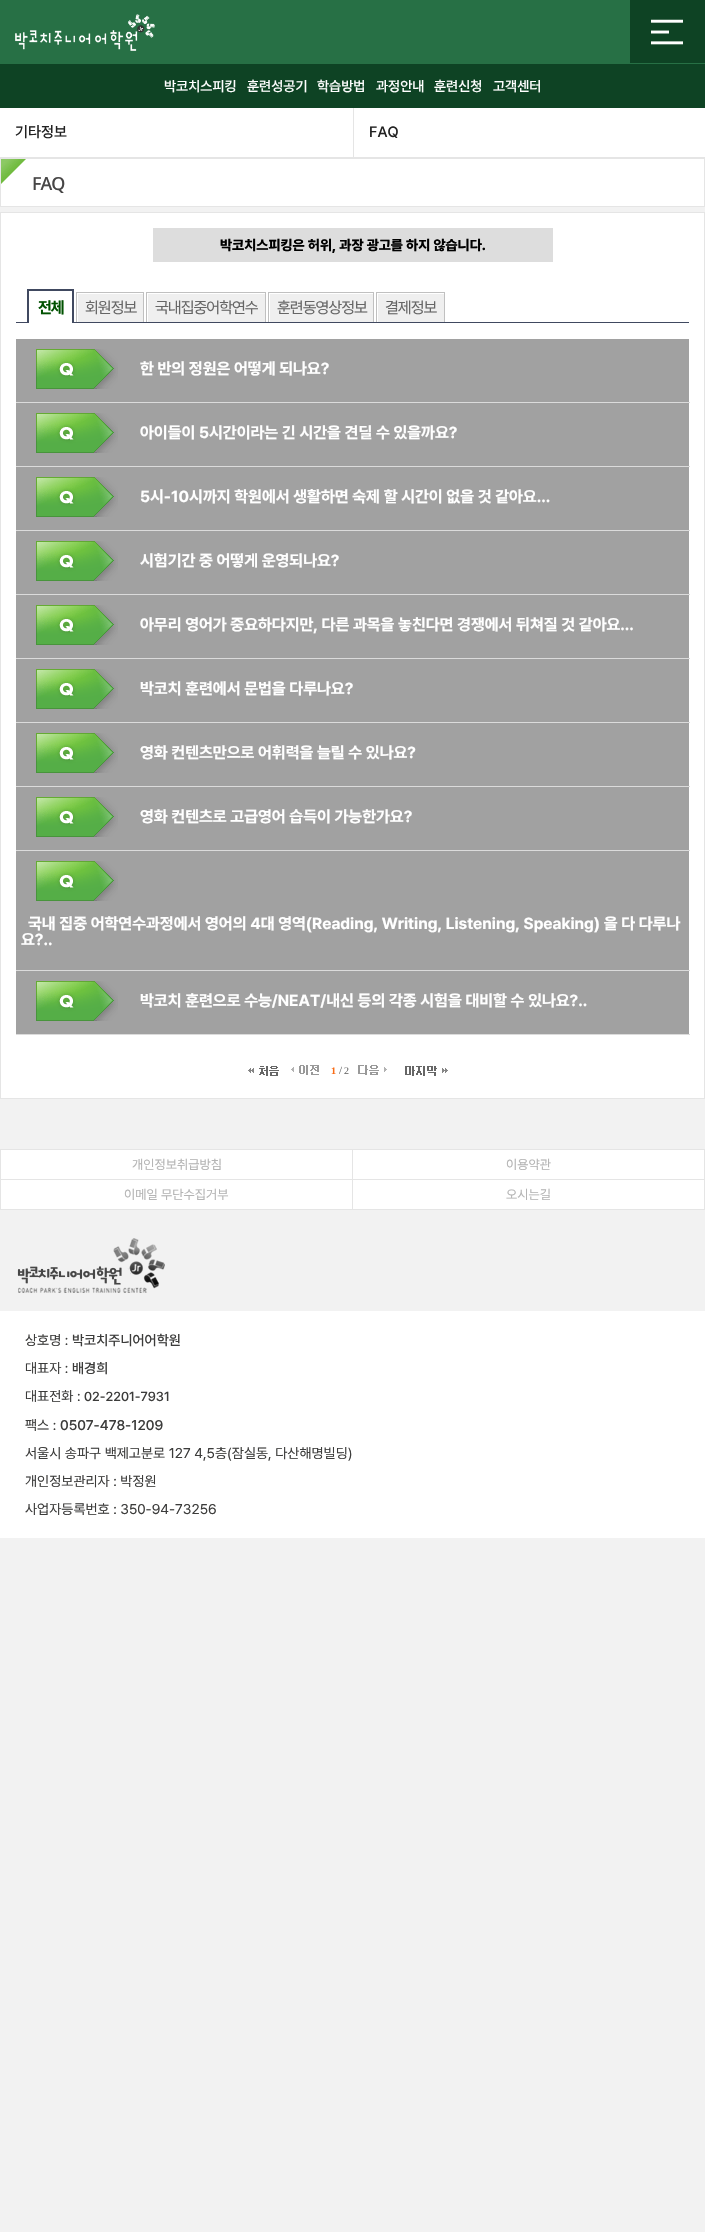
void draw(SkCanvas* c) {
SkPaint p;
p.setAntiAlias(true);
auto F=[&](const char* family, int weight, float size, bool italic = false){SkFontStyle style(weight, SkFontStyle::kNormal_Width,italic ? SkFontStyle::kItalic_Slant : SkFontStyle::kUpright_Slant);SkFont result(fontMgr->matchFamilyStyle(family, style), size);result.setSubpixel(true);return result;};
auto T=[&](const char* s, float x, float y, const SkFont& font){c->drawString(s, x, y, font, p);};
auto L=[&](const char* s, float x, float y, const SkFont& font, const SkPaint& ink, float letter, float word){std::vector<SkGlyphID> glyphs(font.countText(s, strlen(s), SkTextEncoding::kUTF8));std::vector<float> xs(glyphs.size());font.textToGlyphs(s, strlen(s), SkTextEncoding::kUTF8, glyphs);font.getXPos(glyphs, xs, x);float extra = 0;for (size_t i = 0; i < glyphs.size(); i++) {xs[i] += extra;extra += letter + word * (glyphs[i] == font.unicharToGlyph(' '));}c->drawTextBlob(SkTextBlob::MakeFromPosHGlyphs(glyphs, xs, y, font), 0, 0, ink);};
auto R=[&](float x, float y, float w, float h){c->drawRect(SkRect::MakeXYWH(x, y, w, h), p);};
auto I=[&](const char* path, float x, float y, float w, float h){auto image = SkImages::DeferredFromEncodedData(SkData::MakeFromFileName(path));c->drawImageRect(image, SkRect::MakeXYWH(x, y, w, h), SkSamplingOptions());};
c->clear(0xfff2f2f2);
p.setColor(0xff277045);
R(0,0,630,64);
I("1.png",15,14,140,37);
p.setColor(0xff0e4324);
R(630,0,75,63);
p.setColor(0xff277045);
R(630,63,75,1);
I("2.png",651,19,32,26);
p.setColor(0xff0e4324);
R(0,64,705,44);
auto f1 = F("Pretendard",500,14);
p.setColor(0xffffffff);
T("박코치스피킹",164,91,f1);
T("훈련성공기",247,91,f1);
T("학습방법",317,91,f1);
T("과정안내",376,91,f1);
T("훈련신청",434,91,f1);
T("고객센터",493,91,f1);
R(0,108,705,49);
p.setColor(0xffe5e5e5);
R(0,157,705,1);
auto f2 = F("Pretendard",500,15);
p.setColor(0xff222222);
T("기타정보",15,137,f2);
p.setColor(0xffe5e5e5);
R(353,108,1,49);
p.setColor(0xff222222);
T("FAQ",369,137,f2);
p.setColor(0xffffffff);
c->drawRect(SkRect::MakeXYWH(.5,158.5,704,48),p);
p.setStroke(true);
p.setStrokeWidth(1);
p.setColor(0xffe5e5e5);
c->drawRect(SkRect::MakeXYWH(.5,158.5,704,48),p);
I("3.png",1,159,25,25);
auto f3 = F("Noto Sans",500,18);
p.setStroke(false);
p.setColor(0xff474646);
L("FAQ",32,190,f3,p,-1,0);
p.setColor(0xffffffff);
c->drawRect(SkRect::MakeXYWH(.5,212.5,704,886),p);
p.setStroke(true);
p.setColor(0xffe5e5e5);
c->drawRect(SkRect::MakeXYWH(.5,212.5,704,886),p);
p.setStroke(false);
p.setColor(0xffdddddd);
R(153,228,400,34);
auto f4 = F("Pretendard",800,14);
p.setColor(0xff000000);
T("박코치스피킹은 허위, 과장 광고를 하지 않습니다.",220,250,f4);
p.setColor(0xff404960);
R(16,322,673,1);
p.setColor(0xffffffff);
R(29,322,43,1);
p.setColor(0xff404960);
R(27,289,47,2);
R(72,289,2,34);
R(27,289,2,34);
auto f5 = F("Pretendard",700,16);
p.setColor(0xff005100);
L("전체",38,313,f5,p,-1,0);
p.setColor(0xffefefef);
R(78,294,65,28);
p.setColor(0xffc0c0c0);
R(76,292,68,1);
R(143,292,1,30);
R(76,292,1,30);
auto f6 = F("Pretendard",400,16);
p.setColor(0xff666666);
L("회원정보",85,313,f6,p,-1,0);
p.setColor(0xffefefef);
R(148,294,117,28);
p.setColor(0xffc0c0c0);
R(146,292,120,1);
R(265,292,1,30);
R(146,292,1,30);
p.setColor(0xff666666);
L("국내집중어학연수",155,313,f6,p,-1,0);
p.setColor(0xffefefef);
R(270,294,103,28);
p.setColor(0xffc0c0c0);
R(268,292,106,1);
R(373,292,1,30);
R(268,292,1,30);
p.setColor(0xff666666);
L("훈련동영상정보",277,313,f6,p,-1,0);
p.setColor(0xffefefef);
R(378,294,66,28);
p.setColor(0xffc0c0c0);
R(376,292,69,1);
R(444,292,1,30);
R(376,292,1,30);
p.setColor(0xff666666);
L("결제정보",385,313,f6,p,-1,0);
p.setColor(0xffa1a1a1);
R(16,339,673,63);
p.setColor(0xffdbdbdb);
R(16,402,674,1);
I("4.png",36,349,82,40);
p.setColor(0xffffffff);
T("한 반의 정원은 어떻게 되나요?",140,374,f5);
p.setColor(0xffa1a1a1);
R(16,403,673,63);
p.setColor(0xffdbdbdb);
R(16,466,674,1);
I("4.png",36,413,82,40);
p.setColor(0xffffffff);
T("아이들이 5시간이라는 긴 시간을 견딜 수 있을까요?",140,438,f5);
p.setColor(0xffa1a1a1);
R(16,467,673,63);
p.setColor(0xffdbdbdb);
R(16,530,674,1);
I("4.png",36,477,82,40);
p.setColor(0xffffffff);
T("5시-10시까지 학원에서 생활하면 숙제 할 시간이 없을 것 같아요...",140,502,f5);
p.setColor(0xffa1a1a1);
R(16,531,673,63);
p.setColor(0xffdbdbdb);
R(16,594,674,1);
I("4.png",36,541,82,40);
p.setColor(0xffffffff);
T("시험기간 중 어떻게 운영되나요?",140,566,f5);
p.setColor(0xffa1a1a1);
R(16,595,673,63);
p.setColor(0xffdbdbdb);
R(16,658,674,1);
I("4.png",36,605,82,40);
p.setColor(0xffffffff);
T("아무리 영어가 중요하다지만, 다른 과목을 놓친다면 경쟁에서 뒤쳐질 것 같아요...",140,630,f5);
p.setColor(0xffa1a1a1);
R(16,659,673,63);
p.setColor(0xffdbdbdb);
R(16,722,674,1);
I("4.png",36,669,82,40);
p.setColor(0xffffffff);
T("박코치 훈련에서 문법을 다루나요?",140,694,f5);
p.setColor(0xffa1a1a1);
R(16,723,673,63);
p.setColor(0xffdbdbdb);
R(16,786,674,1);
I("4.png",36,733,82,40);
p.setColor(0xffffffff);
T("영화 컨텐츠만으로 어휘력을 늘릴 수 있나요?",140,758,f5);
p.setColor(0xffa1a1a1);
R(16,787,673,63);
p.setColor(0xffdbdbdb);
R(16,850,674,1);
I("4.png",36,797,82,40);
p.setColor(0xffffffff);
T("영화 컨텐츠로 고급영어 습득이 가능한가요?",140,822,f5);
p.setColor(0xffa1a1a1);
R(16,851,673,119);
p.setColor(0xffdbdbdb);
R(16,970,674,1);
I("4.png",36,861,82,40);
p.setColor(0xffffffff);
T("국내 집중 어학연수과정에서 영어의 4대 영역(Reading, Writing, Listening, Speaking) 을 다 다루나",28,929,f5);
T("요?..",21,945,f5);
p.setColor(0xffa1a1a1);
R(16,971,673,63);
p.setColor(0xffdbdbdb);
R(16,1034,674,1);
I("4.png",36,981,82,40);
p.setColor(0xffffffff);
T("박코치 훈련으로 수능/NEAT/내신 등의 각종 시험을 대비할 수 있나요?..",140,1006,f5);
I("5.png",248,1066,31,10);
I("6.png",291,1065,28,10);
auto f7 = F("Liberation Serif",700,10);
p.setColor(0xfff96c16);
T("1",331,1074,f7);
auto f8 = F("Liberation Serif",400,11);
p.setColor(0xff666666);
T("/",339,1074,f8);
auto f9 = F("Liberation Serif",400,10);
T("2",344,1074,f9);
I("7.png",358,1065,29,10);
I("8.png",405,1066,43,10);
p.setColor(0xffffffff);
R(1,1150,703,59);
p.setColor(0xffe5e5e5);
R(0,1149,1,61);
R(1,1149,704,1);
R(352,1149,1,30);
auto f10 = F("Pretendard",400,13);
p.setColor(0xffb4b4b4);
T("개인정보취급방침",132,1169,f10);
p.setColor(0xffe5e5e5);
R(704,1149,1,30);
p.setColor(0xffb4b4b4);
T("이용약관",506,1169,f10);
p.setColor(0xffe5e5e5);
R(1,1179,704,1);
R(352,1179,1,31);
R(1,1209,352,1);
p.setColor(0xffb4b4b4);
T("이메일 무단수집거부",124,1199,f10);
p.setColor(0xffe5e5e5);
R(704,1179,1,31);
R(353,1209,352,1);
p.setColor(0xffb4b4b4);
T("오시는길",506,1199,f10);
I("9.png",17,1238,148,55);
p.setColor(0xffffffff);
R(0,1311,705,227);
auto f11 = F("Pretendard",400,14);
p.setColor(0xff3c3c3b);
T("상호명 :",25,1345,f11);
T("박코치주니어어학원",72,1345,f1);
T("대표자 :",25,1373,f11);
T("배경희",72,1373,f1);
T("대표전화 :",25,1401,f11);
auto f12 = F("Pretendard",500,13);
T("02-2201-7931",84,1401,f12);
T("팩스 :",25,1430,f11);
T("0507-478-1209",60,1430,f1);
T("서울시 송파구 백제고분로 127 4,5층(잠실동, 다산해명빌딩)",25,1458,f11);
T("개인정보관리자 : 박정원",25,1486,f11);
T("사업자등록번호 : 350-94-73256",25,1514,f11);
}
